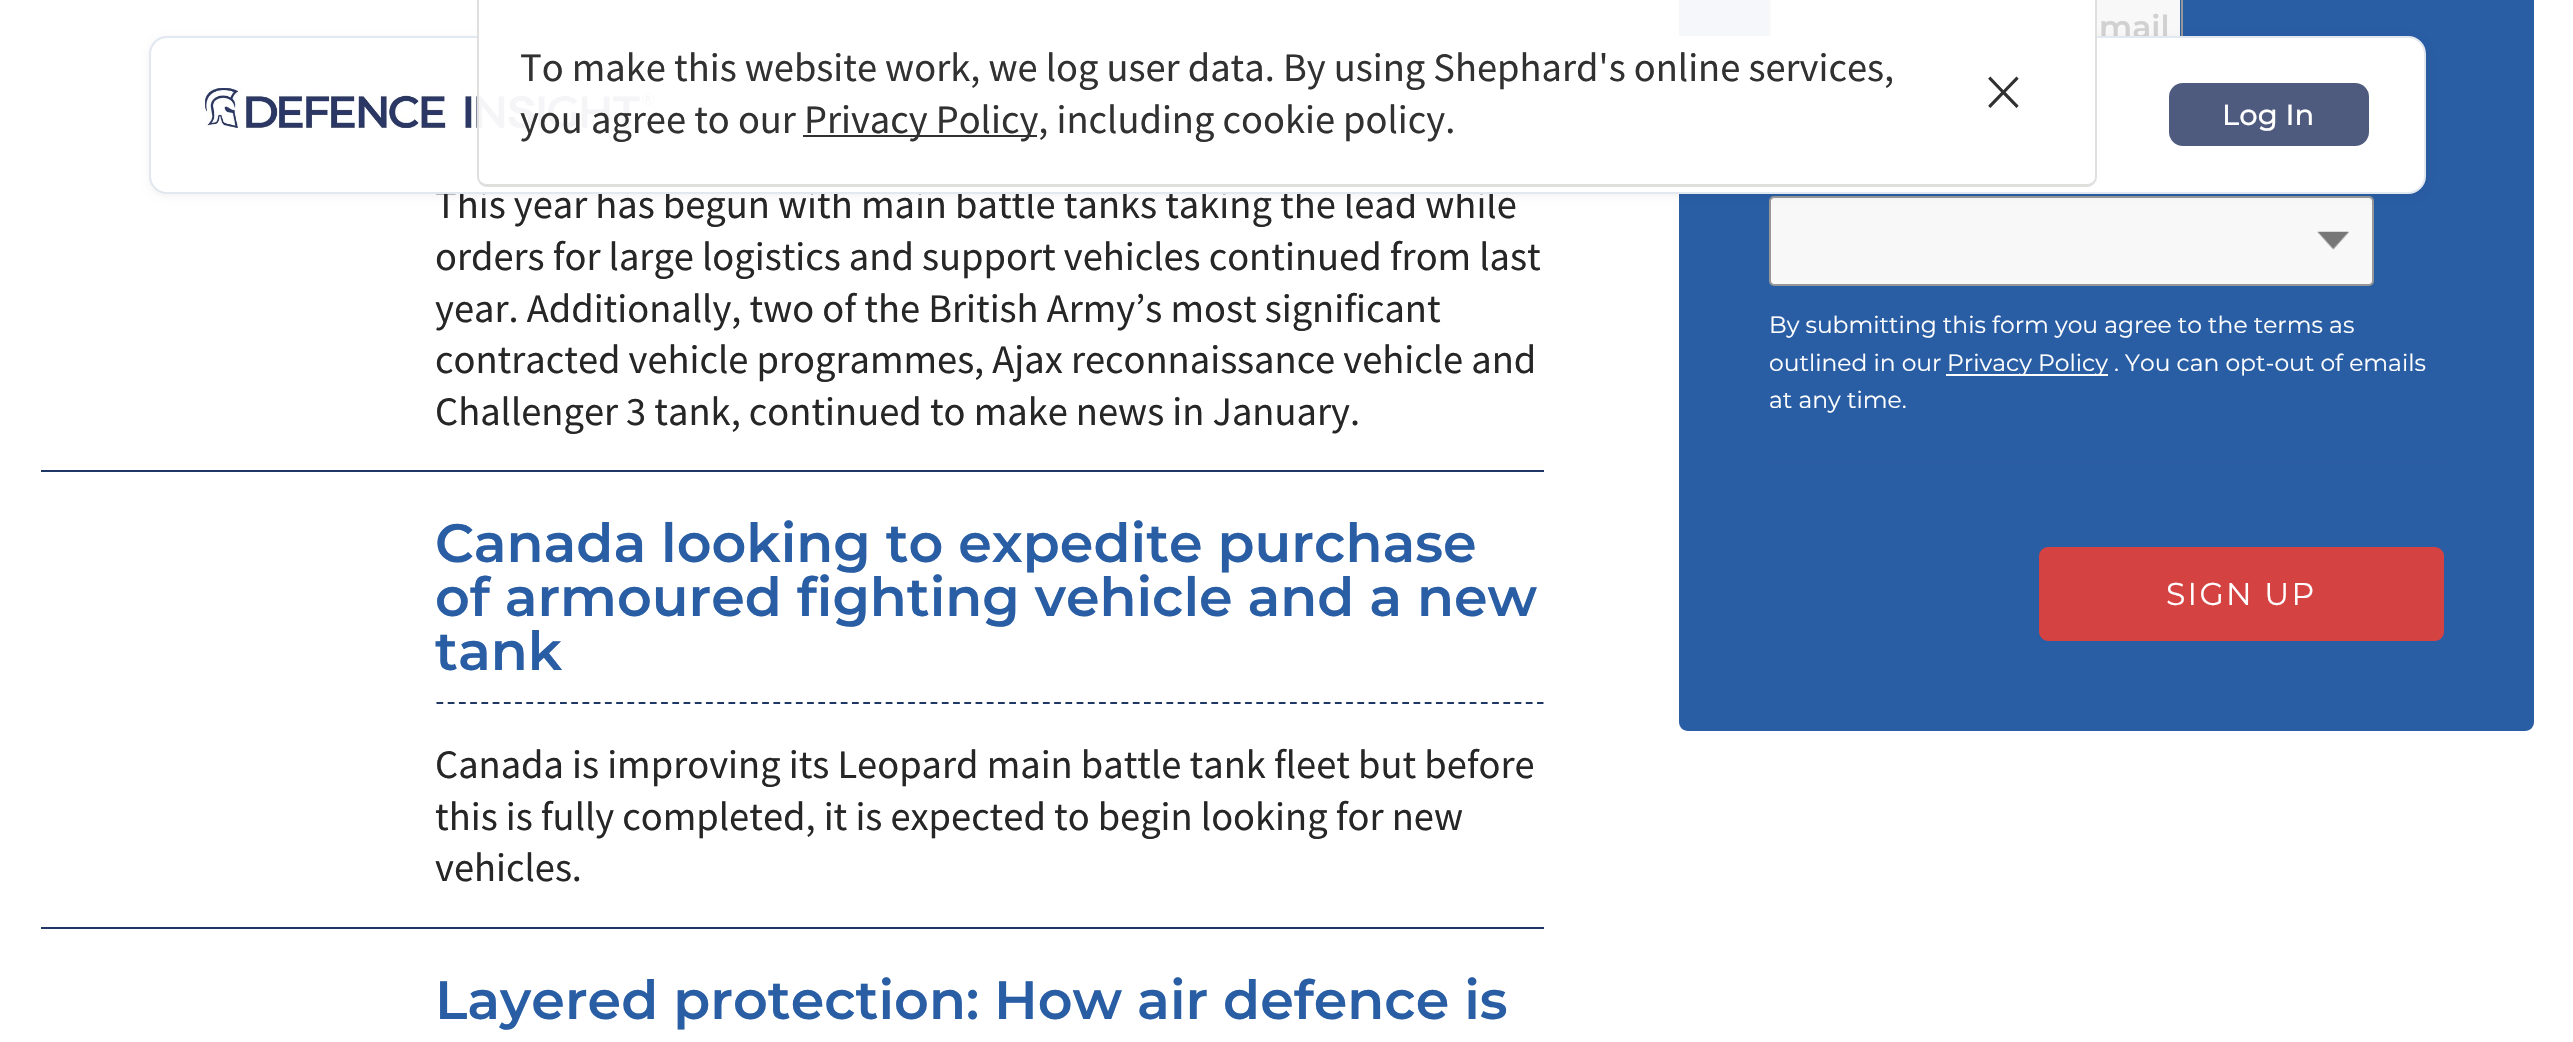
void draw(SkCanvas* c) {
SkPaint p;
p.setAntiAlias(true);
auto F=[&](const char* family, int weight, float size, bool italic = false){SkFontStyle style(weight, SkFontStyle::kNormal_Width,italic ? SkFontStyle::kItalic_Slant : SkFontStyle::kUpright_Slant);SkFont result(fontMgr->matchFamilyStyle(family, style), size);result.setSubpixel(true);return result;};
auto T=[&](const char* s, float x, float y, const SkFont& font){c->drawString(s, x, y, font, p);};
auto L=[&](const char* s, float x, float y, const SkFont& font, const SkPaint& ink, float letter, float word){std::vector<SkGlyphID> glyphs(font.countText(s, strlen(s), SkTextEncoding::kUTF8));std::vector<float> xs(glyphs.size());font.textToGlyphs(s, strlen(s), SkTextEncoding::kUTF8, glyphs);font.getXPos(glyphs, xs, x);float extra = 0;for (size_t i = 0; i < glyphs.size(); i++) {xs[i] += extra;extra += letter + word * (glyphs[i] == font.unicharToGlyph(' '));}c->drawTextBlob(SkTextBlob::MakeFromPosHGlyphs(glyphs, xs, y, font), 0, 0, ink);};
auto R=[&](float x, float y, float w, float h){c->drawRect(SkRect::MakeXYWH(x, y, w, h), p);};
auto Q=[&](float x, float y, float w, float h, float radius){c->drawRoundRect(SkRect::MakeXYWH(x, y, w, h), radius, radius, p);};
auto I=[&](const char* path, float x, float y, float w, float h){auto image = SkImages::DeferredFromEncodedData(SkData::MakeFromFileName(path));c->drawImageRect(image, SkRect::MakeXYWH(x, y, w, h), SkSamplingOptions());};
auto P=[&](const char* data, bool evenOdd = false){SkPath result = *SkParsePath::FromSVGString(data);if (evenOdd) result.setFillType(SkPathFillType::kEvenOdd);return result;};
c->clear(0xffffffff);
p.setColor(0xff1e3765);
R(41,470,1503,2);
auto f1 = F("Source Sans Pro",400,40.5);
p.setColor(0xff262626);
T("This year has begun with main battle tanks taking the lead while",435,218,f1);
T("orders for large logistics and support vehicles continued from last",435,270,f1);
T("year. Additionally, two of the British Army’s most significant",435,322,f1);
T("contracted vehicle programmes, Ajax reconnaissance vehicle and",435,373,f1);
T("Challenger 3 tank, continued to make news in January.",435,425,f1);
p.setColor(0xff1e3765);
R(41,927,1503,2);
p.setStroke(true);
p.setStrokeWidth(2.2);
p.setPathEffect(SkDashPathEffect::Make({{6.75f,4.48f}}, 0));
c->drawPath(P("M436.5 703h1107"),p);
p.setPathEffect(nullptr);
auto f2 = F("Montserrat",600,54);
p.setStroke(false);
p.setColor(0xff295da4);
T("Canada looking to expedite purchase",435,562,f2);
T("of armoured fighting vehicle and a new",435,616,f2);
T("tank",435,670,f2);
p.setColor(0xff262626);
T("Canada is improving its Leopard main battle tank fleet but before",435,778,f1);
T("this is fully completed, it is expected to begin looking for new",435,830,f1);
T("vehicles.",435,881,f1);
p.setColor(0xff295da4);
T("Layered protection: How air defence is",435,1019,f2);
c->drawPath(P("M1679-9h855v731c0 5-4 9-9 9h-837c-5 0-9-4-9-9z"),p);
p.setColor(0xfff8f8f8);
R(1771,0,409,36);
p.setStroke(true);
p.setStrokeWidth(2);
p.setColor(0xff979797);
c->drawRect(SkRect::MakeXYWH(1770,-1,412,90),p);
auto f3 = F("Montserrat",600,31.5);
p.setStroke(false);
p.setColor(0xffd1d1d1);
T("mail",2099,38,f3);
p.setColor(0xfff8f8f8);
Q(1771,198,601,86,2);
I("1.png",2317,231,32,19);
p.setStroke(true);
p.setColor(0xff979797);
c->drawRoundRect(SkRect::MakeXYWH(1770,197,603,88),4,4,p);
p.setStroke(false);
p.setColor(0xff2e5ca3);
R(1769,461,675,2);
auto f4 = F("Montserrat",100,23.4);
p.setColor(0xffffffff);
T("By submitting this form you agree to the terms as",1769,333,f4);
T("outlined in our",1769,371,f4);
R(1946,374,162,2);
T("Privacy Policy . You can opt-out of emails",1947,371,f4);
T("at any time.",1769,408,f4);
p.setColor(0xffd44242);
Q(2039,547,405,94,9);
auto f5 = F("Montserrat",100,31.5);
p.setColor(0xffffffff);
L("SIGN UP",2166,605,f5,p,2.25,0);
p.setColor(0x0d000000);
p.setMaskFilter(SkMaskFilter::MakeBlur(kNormal_SkBlurStyle, 3.5));
c->drawRoundRect(SkRect::MakeXYWH(149,38,2277,158),18,18,p);
p.setMaskFilter(nullptr);
p.setColor(0xffffffff);
c->drawRoundRect(SkRect::MakeXYWH(150,37,2275,156),17,17,p);
p.setStroke(true);
p.setColor(0xffe2e8f0);
c->drawRoundRect(SkRect::MakeXYWH(150,37,2275,156),17,17,p);
I("2.png",205,88,450,40);
p.setStroke(false);
p.setColor(0xff4e5b7e);
Q(2169,83,200,63,14);
auto f6 = F("Montserrat",500,29);
p.setColor(0xffffffff);
T("Log In",2222,125,f6);
p.setColor(0xf2ffffff);
c->drawPath(P("M477 0h1620v176c0 6-5 11-11 11h-1598c-6 0-11-5-11-11z"),p);
p.setColor(0xf2dddddc);
c->drawPath(P("M477 0h1620v177c0 5-5 10-10 10h-1600c-5 0-10-5-10-10zm2 0h1616v177c0 4-4 7-8 7h-1600c-4 0-8-3-8-7z",true),p);
p.setColor(0xff313131);
T("To make this website work, we log user data. By using Shephard's online services,",520,81,f1);
T("you agree to our",520,133,f1);
R(803,135,234,2);
T("Privacy Policy, including cookie policy.",804,133,f1);
auto f7 = F("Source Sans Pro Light",300,81);
T("×",1984,119,f7);
}
